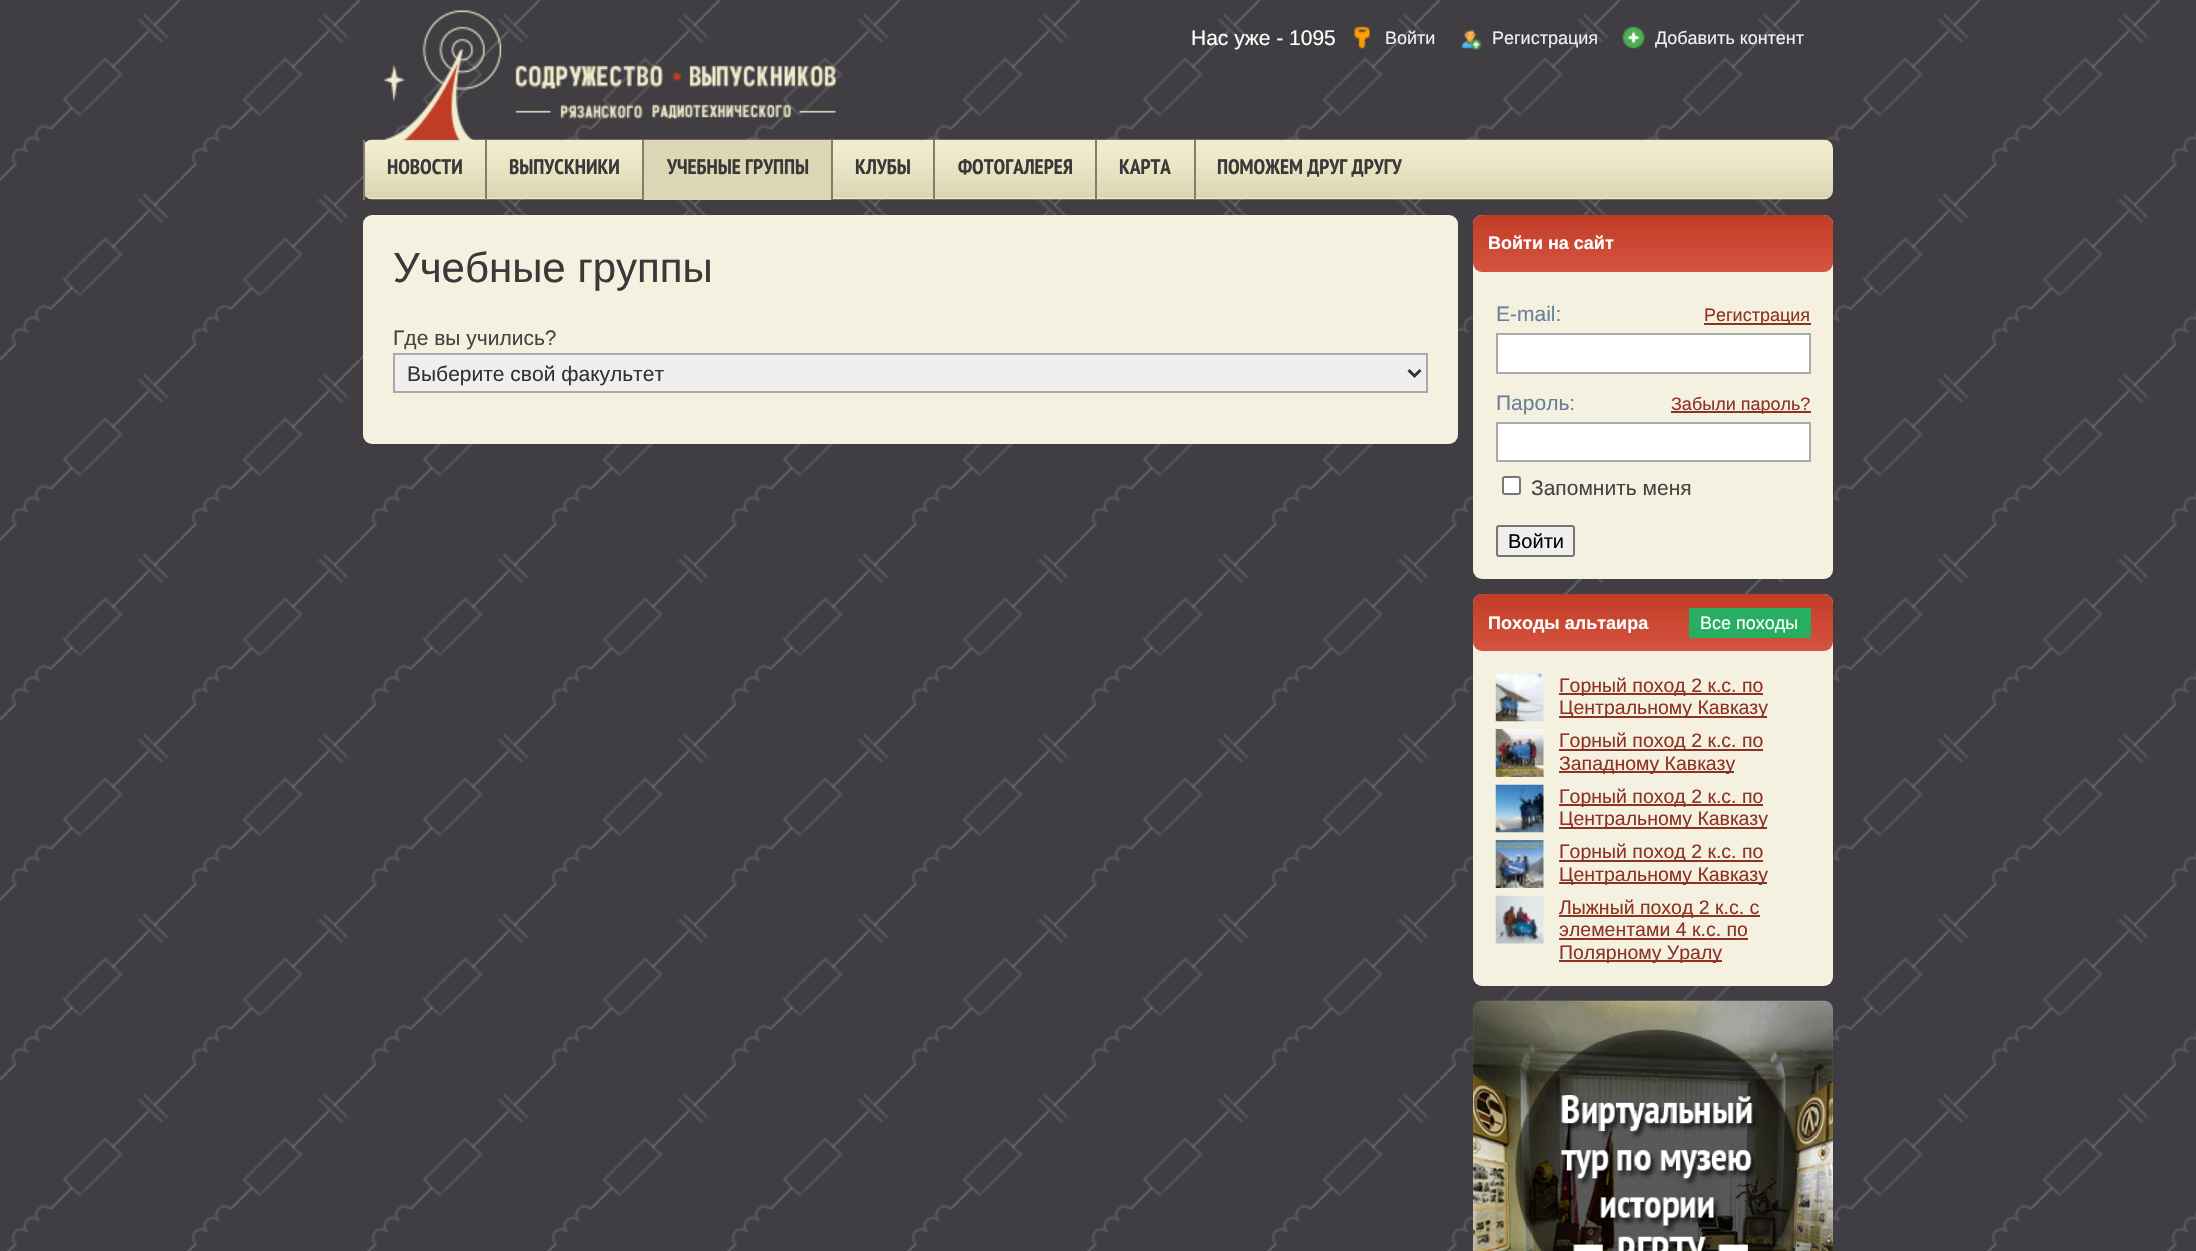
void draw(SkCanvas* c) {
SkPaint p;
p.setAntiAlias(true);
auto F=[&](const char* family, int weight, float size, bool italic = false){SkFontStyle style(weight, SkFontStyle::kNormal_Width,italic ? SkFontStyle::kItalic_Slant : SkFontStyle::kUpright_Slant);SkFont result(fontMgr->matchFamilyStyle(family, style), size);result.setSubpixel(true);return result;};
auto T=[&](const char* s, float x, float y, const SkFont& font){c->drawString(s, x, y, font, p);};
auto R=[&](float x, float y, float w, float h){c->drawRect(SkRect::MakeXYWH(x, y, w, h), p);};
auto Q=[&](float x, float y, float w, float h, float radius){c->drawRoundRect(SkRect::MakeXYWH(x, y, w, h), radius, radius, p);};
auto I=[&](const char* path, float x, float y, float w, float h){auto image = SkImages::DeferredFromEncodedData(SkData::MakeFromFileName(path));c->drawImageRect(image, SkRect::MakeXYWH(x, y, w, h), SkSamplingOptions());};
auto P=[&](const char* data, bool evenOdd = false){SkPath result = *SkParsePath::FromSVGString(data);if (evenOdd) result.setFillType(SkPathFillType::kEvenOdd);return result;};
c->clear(0xffffffff);
I("1.png",0,0,2196,1251);
I("6.png",365,139,1468,61);
I("2.png",384,10,452,132);
auto f1 = F("Liberation Sans",400,21);
p.setColor(0xffffffff);
T("Нас уже - 1095",1191,45,f1);
I("3.png",1354,26,16,23);
auto f2 = F("Liberation Sans",400,18);
p.setColor(0xffecf0f1);
T("Войти",1385,44,f2);
I("4.png",1461,29,21,21);
T("Регистрация",1492,44,f2);
I("5.png",1622,26,23,23);
T("Добавить контент",1655,44,f2);
p.setColor(0xff827e6b);
R(363,140,2,60);
auto f3 = F("PT Sans Narrow",700,21);
p.setColor(0xff393939);
T("НОВОСТИ",387,174,f3);
p.setColor(0xff827e6b);
R(485,140,2,60);
p.setColor(0xff393939);
T("ВЫПУСКНИКИ",509,174,f3);
p.setColor(0xff827e6b);
R(642,140,2,60);
p.setColor(0xffddd6b5);
R(644,140,187,60);
p.setColor(0xff393939);
T("УЧЕБНЫЕ ГРУППЫ",667,174,f3);
p.setColor(0xff827e6b);
R(831,140,2,60);
p.setColor(0xff393939);
T("КЛУБЫ",855,174,f3);
p.setColor(0xff827e6b);
R(933,140,2,60);
p.setColor(0xff393939);
T("ФОТОГАЛЕРЕЯ",958,174,f3);
p.setColor(0xff827e6b);
R(1095,140,2,60);
p.setColor(0xff393939);
T("КАРТА",1119,174,f3);
p.setColor(0xff827e6b);
R(1194,140,2,60);
p.setColor(0xff393939);
T("ПОМОЖЕМ ДРУГ ДРУГУ",1217,174,f3);
p.setColor(0xfff4f1e0);
Q(363,215,1095,229,9);
auto f4 = F("Liberation Sans",400,42);
p.setColor(0xff393939);
T("Учебные группы",393,282,f4);
p.setColor(0xff444444);
T("Где вы учились?",393,345,f1);
p.setColor(0xffefefef);
c->drawRect(SkRect::MakeXYWH(394,354,1033,38),p);
p.setStroke(true);
p.setStrokeWidth(2);
p.setColor(0xffaaaaaa);
c->drawRect(SkRect::MakeXYWH(394,354,1033,38),p);
p.setStrokeWidth(3);
p.setColor(0xff333333);
c->drawPath(P("M1408.5 370l6 6l6-6"),p);
p.setStroke(false);
T("Выберите свой факультет",407,381,f1);
p.setColor(0xfff4f1e0);
Q(1473,215,360,364,9);
{
const SkColor colors[] = {0xffd5543f,0xffc13c27};
const float stops[] = {0,1};
const SkPoint ends[] = {{1653,272}, {1653,215}};
p.setShader(SkGradientShader::MakeLinear(ends, colors, stops, 2, SkTileMode::kClamp));
p.setAlpha(255);
}
Q(1473,215,360,57,9);
auto f5 = F("Liberation Sans",700,18);
p.setShader(nullptr);
p.setColor(0xffffffff);
T("Войти на сайт",1488,249,f5);
p.setColor(0xff68809b);
T("E-mail:",1496,321,f1);
p.setColor(0xff8e3223);
R(1704,323,107,2);
T("Регистрация",1704,321,f2);
p.setColor(0xffffffff);
c->drawRect(SkRect::MakeXYWH(1497,334,313,39),p);
p.setStroke(true);
p.setStrokeWidth(2);
p.setColor(0xffaaaaaa);
c->drawRect(SkRect::MakeXYWH(1497,334,313,39),p);
p.setStroke(false);
p.setColor(0xff68809b);
T("Пароль:",1496,410,f1);
p.setColor(0xff8e3223);
R(1671,411,140,2);
T("Забыли пароль?",1671,410,f2);
p.setColor(0xffffffff);
c->drawRect(SkRect::MakeXYWH(1497,423,313,38),p);
p.setStroke(true);
p.setColor(0xffaaaaaa);
c->drawRect(SkRect::MakeXYWH(1497,423,313,38),p);
p.setStroke(false);
p.setColor(0xffffffff);
c->drawRoundRect(SkRect::MakeXYWH(1503,477,17,17),2,2,p);
p.setStroke(true);
p.setColor(0xff767676);
c->drawRoundRect(SkRect::MakeXYWH(1503,477,17,17),2,2,p);
p.setStroke(false);
p.setColor(0xff444444);
T("Запомнить меня",1531,495,f1);
p.setColor(0xffefefef);
c->drawRoundRect(SkRect::MakeXYWH(1497,526,77,30),2,2,p);
p.setStroke(true);
p.setColor(0xff767676);
c->drawRoundRect(SkRect::MakeXYWH(1497,526,77,30),2,2,p);
auto f6 = F("Liberation Sans",400,20);
p.setStroke(false);
p.setColor(0xff000000);
T("Войти",1508,548,f6);
p.setColor(0xfff4f1e0);
Q(1473,594,360,392,9);
{
const SkColor colors[] = {0xffd5543f,0xffc13c27};
const float stops[] = {0,1};
const SkPoint ends[] = {{1653,651}, {1653,594}};
p.setShader(SkGradientShader::MakeLinear(ends, colors, stops, 2, SkTileMode::kClamp));
p.setAlpha(255);
}
Q(1473,594,360,57,9);
p.setShader(nullptr);
p.setColor(0xffffffff);
T("Походы альтаира",1488,629,f5);
p.setColor(0xff27ae60);
R(1689,608,122,30);
p.setColor(0xffffffff);
T("Все походы",1700,629,f2);
I("7.png",1495,673,49,49);
p.setColor(0xff8e3223);
R(1559,693,204,2);
auto f7 = F("Liberation Sans",400,19.5);
T("Горный поход 2 к.с. по",1559,692,f7);
R(1559,716,208,2);
T("Центральному Кавказу",1559,714,f7);
I("8.png",1495,729,49,48);
R(1559,749,204,2);
T("Горный поход 2 к.с. по",1559,747,f7);
R(1559,771,175,2);
T("Западному Кавказу",1559,770,f7);
I("9.png",1495,784,49,49);
R(1559,804,204,2);
T("Горный поход 2 к.с. по",1559,803,f7);
R(1559,827,208,2);
T("Центральному Кавказу",1559,825,f7);
I("10.png",1495,840,49,48);
R(1559,860,204,2);
T("Горный поход 2 к.с. по",1559,858,f7);
R(1559,882,208,2);
T("Центральному Кавказу",1559,881,f7);
I("11.png",1495,895,49,49);
R(1559,915,201,2);
T("Лыжный поход 2 к.с. с",1559,914,f7);
T("элементами 4 к.с. по",1559,936,f7);
R(1559,938,189,2);
R(1559,960,163,2);
T("Полярному Уралу",1559,959,f7);
I("12.png",1473,1000,360,251);
}
